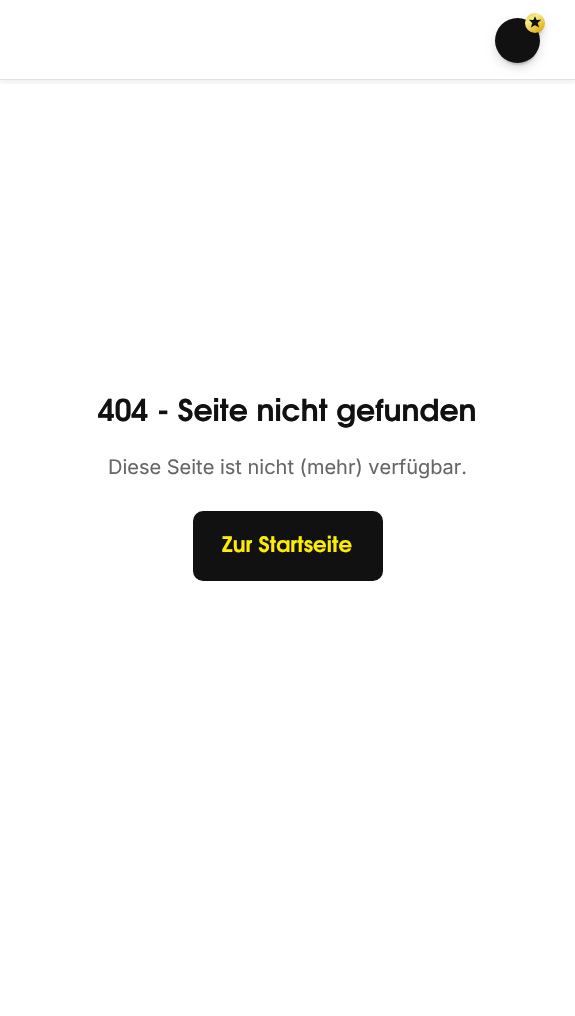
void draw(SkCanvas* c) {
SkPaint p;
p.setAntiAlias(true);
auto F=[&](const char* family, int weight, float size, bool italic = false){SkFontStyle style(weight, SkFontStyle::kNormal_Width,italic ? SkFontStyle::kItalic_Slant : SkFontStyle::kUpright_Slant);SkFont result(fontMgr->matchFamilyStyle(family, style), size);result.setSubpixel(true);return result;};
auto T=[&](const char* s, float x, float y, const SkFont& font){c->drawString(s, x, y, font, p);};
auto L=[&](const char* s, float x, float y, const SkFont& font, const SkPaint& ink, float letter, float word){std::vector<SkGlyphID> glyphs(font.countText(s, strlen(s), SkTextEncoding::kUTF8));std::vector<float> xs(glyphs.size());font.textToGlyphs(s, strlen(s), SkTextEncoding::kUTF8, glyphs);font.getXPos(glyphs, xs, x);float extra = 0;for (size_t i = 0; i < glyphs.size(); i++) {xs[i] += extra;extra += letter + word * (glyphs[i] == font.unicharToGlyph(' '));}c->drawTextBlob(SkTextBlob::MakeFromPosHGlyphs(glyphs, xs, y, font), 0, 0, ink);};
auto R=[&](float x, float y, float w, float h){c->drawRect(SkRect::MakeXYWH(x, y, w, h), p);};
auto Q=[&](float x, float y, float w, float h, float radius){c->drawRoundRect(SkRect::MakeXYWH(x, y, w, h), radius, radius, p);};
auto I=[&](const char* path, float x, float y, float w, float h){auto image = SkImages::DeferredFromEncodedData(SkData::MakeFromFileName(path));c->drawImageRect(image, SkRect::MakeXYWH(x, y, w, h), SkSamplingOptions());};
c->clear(0xffffffff);
c->save();
c->clipRect(SkRect::MakeXYWH(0,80,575,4));
p.setColor(0x0f000000);
p.setMaskFilter(SkMaskFilter::MakeBlur(kNormal_SkBlurStyle, 2.5));
c->drawRect(SkRect::MakeXYWH(0,3,575,80),p);
p.setMaskFilter(nullptr);
c->restore();
p.setColor(0xffe2e2e2);
R(0,79,575,1);
p.setColor(0x2b000000);
p.setMaskFilter(SkMaskFilter::MakeBlur(kNormal_SkBlurStyle, 1));
c->drawRoundRect(SkRect::MakeXYWH(498,25,40,40),20,20,p);
p.setMaskFilter(nullptr);
p.setColor(0x21000000);
p.setMaskFilter(SkMaskFilter::MakeBlur(kNormal_SkBlurStyle, 4));
c->drawRoundRect(SkRect::MakeXYWH(495,23,45,45),22.5,22.5,p);
p.setMaskFilter(nullptr);
p.setColor(0xff111111);
c->drawCircle(517.5,40.5,22.5,p);
p.setColor(0x2b000000);
p.setMaskFilter(SkMaskFilter::MakeBlur(kNormal_SkBlurStyle, 1));
c->drawRoundRect(SkRect::MakeXYWH(528,20,15,15),7.5,7.5,p);
p.setMaskFilter(nullptr);
p.setColor(0x21000000);
p.setMaskFilter(SkMaskFilter::MakeBlur(kNormal_SkBlurStyle, 4));
c->drawRoundRect(SkRect::MakeXYWH(525,18,20,20),10,10,p);
p.setMaskFilter(nullptr);
{
const SkColor colors[] = {0xffeecd52,0xfff6ed89,0xffdead15};
const float stops[] = {.09,.33,.88};
const SkPoint ends[] = {{527,11}, {543,34}};
p.setShader(SkGradientShader::MakeLinear(ends, colors, stops, 3, SkTileMode::kClamp));
p.setAlpha(255);
}
c->drawCircle(535,23,10,p);
I("1.png",529,16,12,12);
auto f1 = F("TeX Gyre Adventor",700,30);
p.setShader(nullptr);
p.setColor(0xff111111);
T("404 - Seite nicht gefunden",98,421,f1);
auto f2 = F("Inter",400,20);
p.setColor(0xff666666);
T("Diese Seite ist nicht (mehr) verfügbar.",108,474,f2);
p.setColor(0xff111111);
Q(193,511,190,70,10);
auto f3 = F("TeX Gyre Adventor",700,21.25);
p.setColor(0xffffed00);
L("Zur Startseite",222,552,f3,p,.1,0);
}
